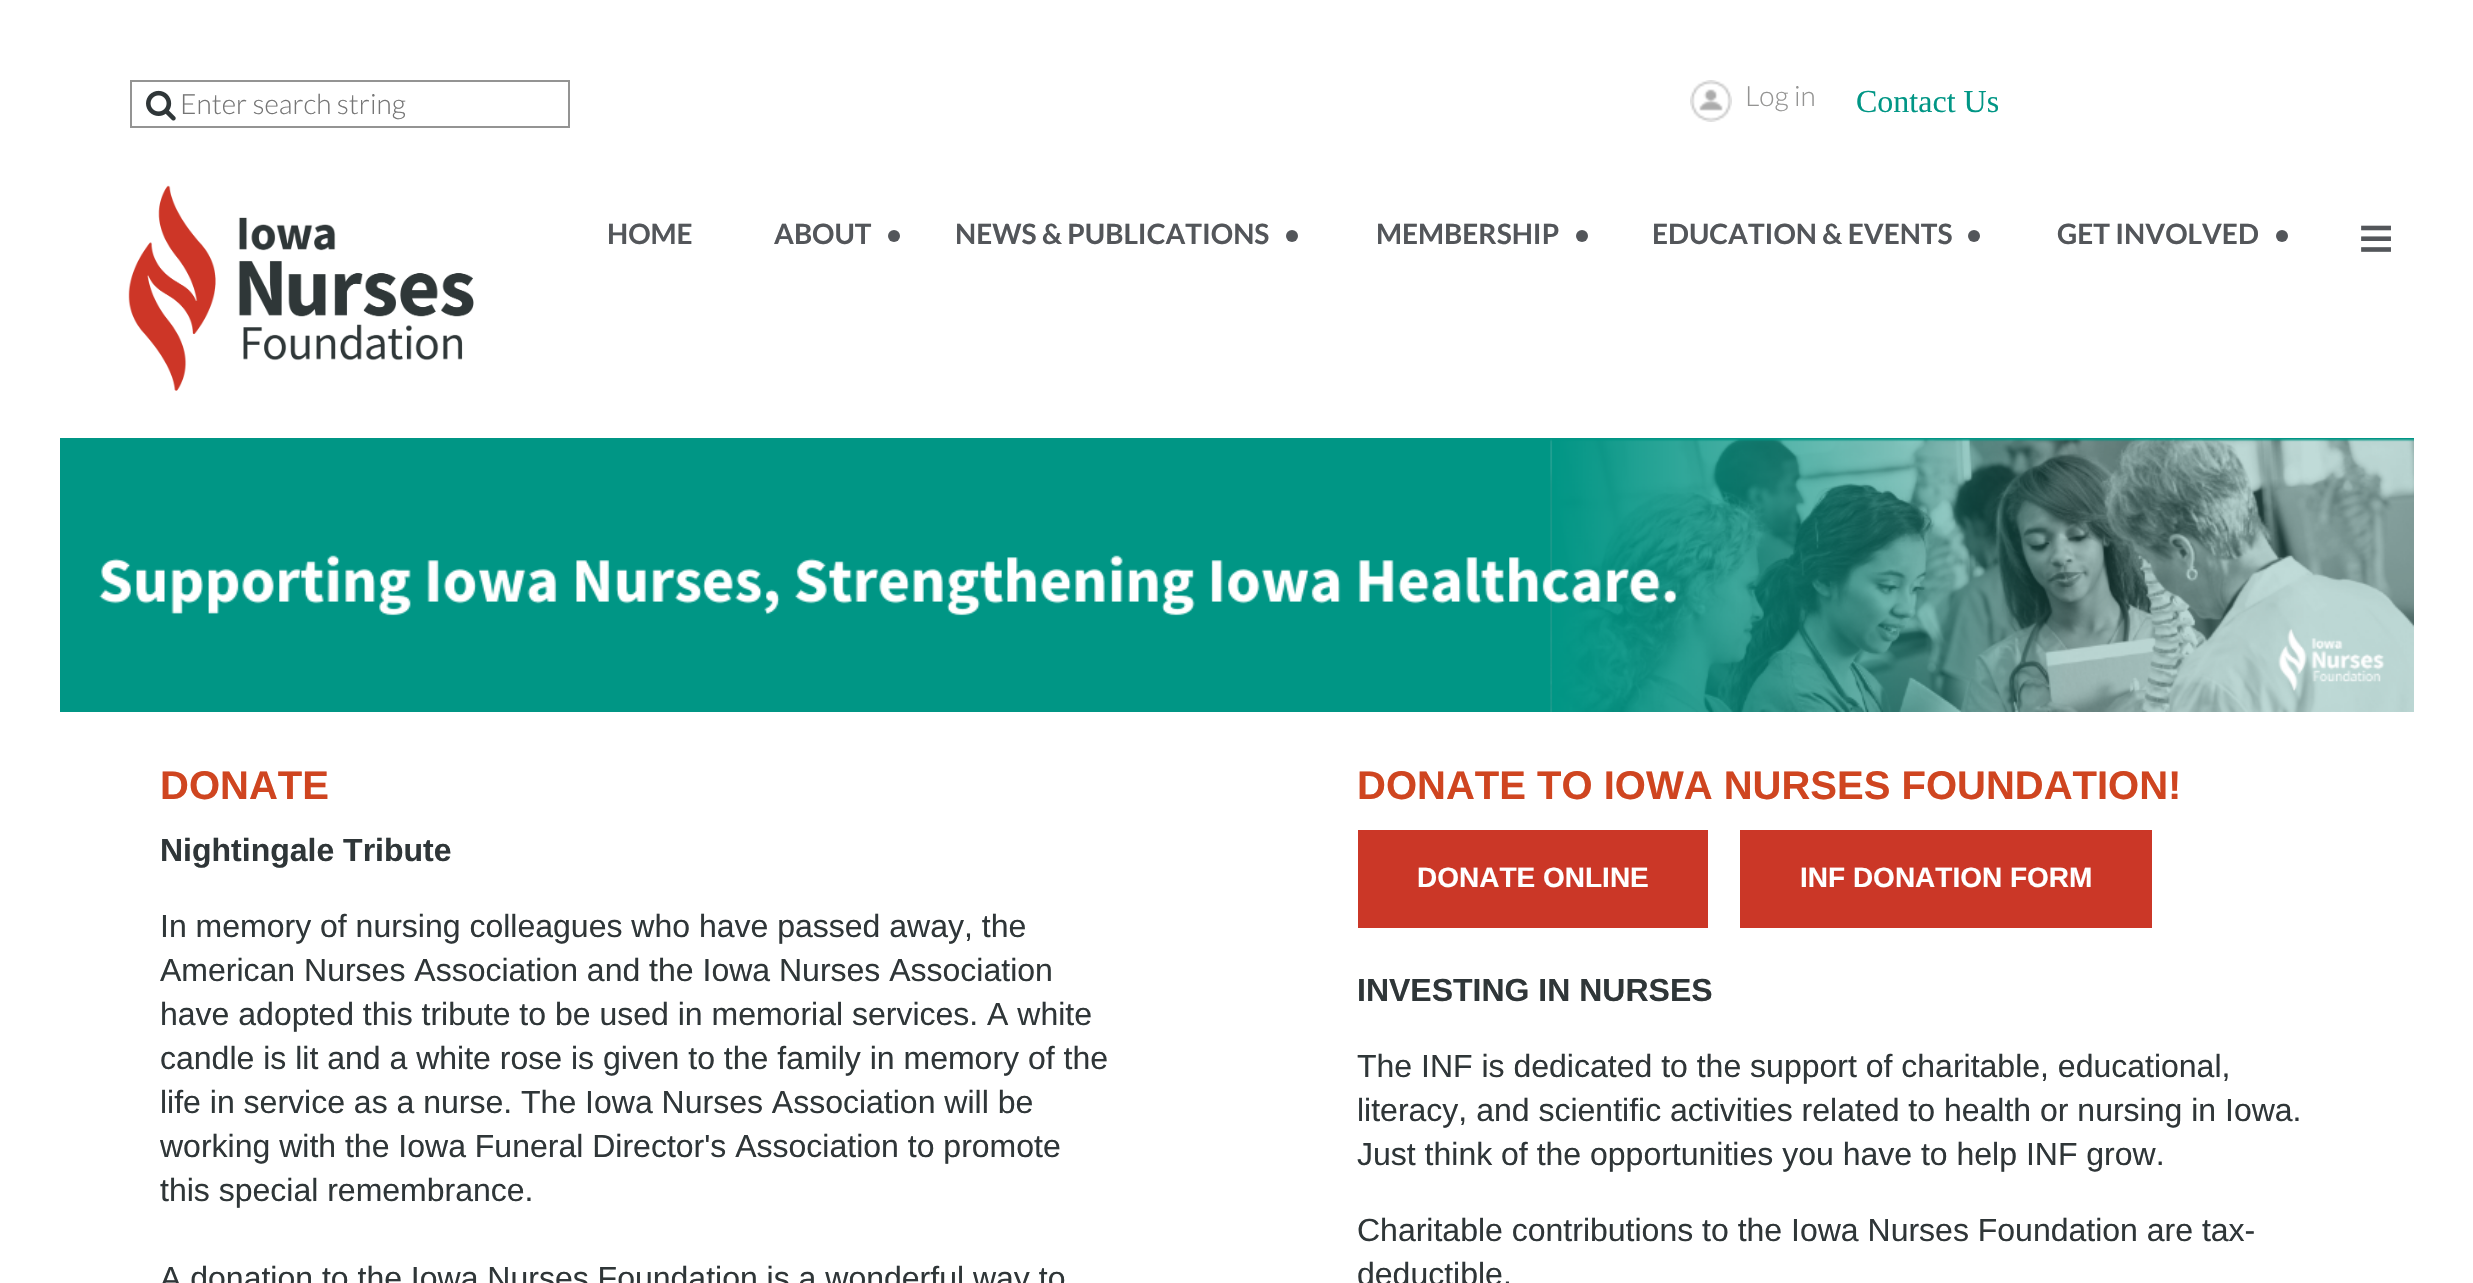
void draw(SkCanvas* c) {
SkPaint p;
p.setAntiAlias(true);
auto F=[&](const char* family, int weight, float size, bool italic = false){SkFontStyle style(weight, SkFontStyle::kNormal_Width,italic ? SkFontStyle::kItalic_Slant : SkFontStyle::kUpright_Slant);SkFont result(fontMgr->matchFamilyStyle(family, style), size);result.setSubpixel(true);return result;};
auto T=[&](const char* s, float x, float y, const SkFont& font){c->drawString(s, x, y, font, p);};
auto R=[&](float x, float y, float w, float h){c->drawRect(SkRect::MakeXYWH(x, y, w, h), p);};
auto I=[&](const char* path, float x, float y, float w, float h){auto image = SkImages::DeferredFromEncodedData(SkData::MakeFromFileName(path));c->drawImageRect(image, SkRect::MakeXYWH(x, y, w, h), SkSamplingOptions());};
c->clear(0xffffffff);
p.setStroke(true);
p.setStrokeWidth(2);
p.setColor(0xff949493);
c->drawRect(SkRect::MakeXYWH(131,81,438,46),p);
I("1.png",146,90,30,31);
auto f1 = F("Lato",300,28);
p.setStroke(false);
p.setColor(0xff757575);
T("Enter search string",180,114,f1);
I("2.png",1690,80,42,42);
p.setColor(0xff949493);
T("Log in",1745,106,f1);
auto f2 = F("Liberation Serif",400,32);
p.setColor(0xff009685);
T("Contact Us",1856,112,f2);
I("3.png",128,185,346,206);
auto f3 = F("Lato",700,28);
p.setColor(0xff53565a);
T("HOME",607,244,f3);
T("ABOUT",774,244,f3);
c->drawCircle(894,236,6,p);
T("NEWS & PUBLICATIONS",955,244,f3);
c->drawCircle(1292,236,6,p);
T("MEMBERSHIP",1376,244,f3);
c->drawCircle(1582,236,6,p);
T("EDUCATION & EVENTS",1652,244,f3);
c->drawCircle(1974,236,6,p);
T("GET INVOLVED",2057,244,f3);
c->drawCircle(2282,236,6,p);
auto f4 = F("Liberation Serif",700,64);
T("≡",2358,260,f4);
I("4.png",60,438,2354,274);
auto f5 = F("Liberation Sans",700,40);
p.setColor(0xffcf4520);
T("DONATE",160,799,f5);
auto f6 = F("Liberation Sans",700,32);
p.setColor(0xff2f3638);
T("Nightingale Tribute",160,861,f6);
auto f7 = F("Liberation Sans",400,32);
T("In memory of nursing colleagues who have passed away, the",160,937,f7);
T("American Nurses Association and the Iowa Nurses Association",160,981,f7);
T("have adopted this tribute to be used in memorial services. A white",160,1025,f7);
T("candle is lit and a white rose is given to the family in memory of the",160,1069,f7);
T("life in service as a nurse. The Iowa Nurses Association will be",160,1113,f7);
T("working with the Iowa Funeral Director's Association to promote",160,1157,f7);
T("this special remembrance.",160,1201,f7);
T("A donation to the Iowa Nurses Foundation is a wonderful way to",160,1289,f7);
p.setColor(0xffcf4520);
T("DONATE TO IOWA NURSES FOUNDATION!",1357,799,f5);
p.setColor(0xffcb3727);
R(1358,830,350,98);
auto f8 = F("Liberation Sans",700,28);
p.setColor(0xffffffff);
T("DONATE ONLINE",1417,887,f8);
p.setColor(0xffcb3727);
R(1740,830,412,98);
p.setColor(0xffffffff);
T("INF DONATION FORM",1800,887,f8);
p.setColor(0xff2f3638);
T("INVESTING IN NURSES",1357,1001,f6);
T("The INF is dedicated to the support of charitable, educational,",1357,1077,f7);
T("literacy, and scientific activities related to health or nursing in Iowa.",1357,1121,f7);
T("Just think of the opportunities you have to help INF grow.",1357,1165,f7);
T("Charitable contributions to the Iowa Nurses Foundation are tax-",1357,1241,f7);
T("deductible.",1357,1285,f7);
}
